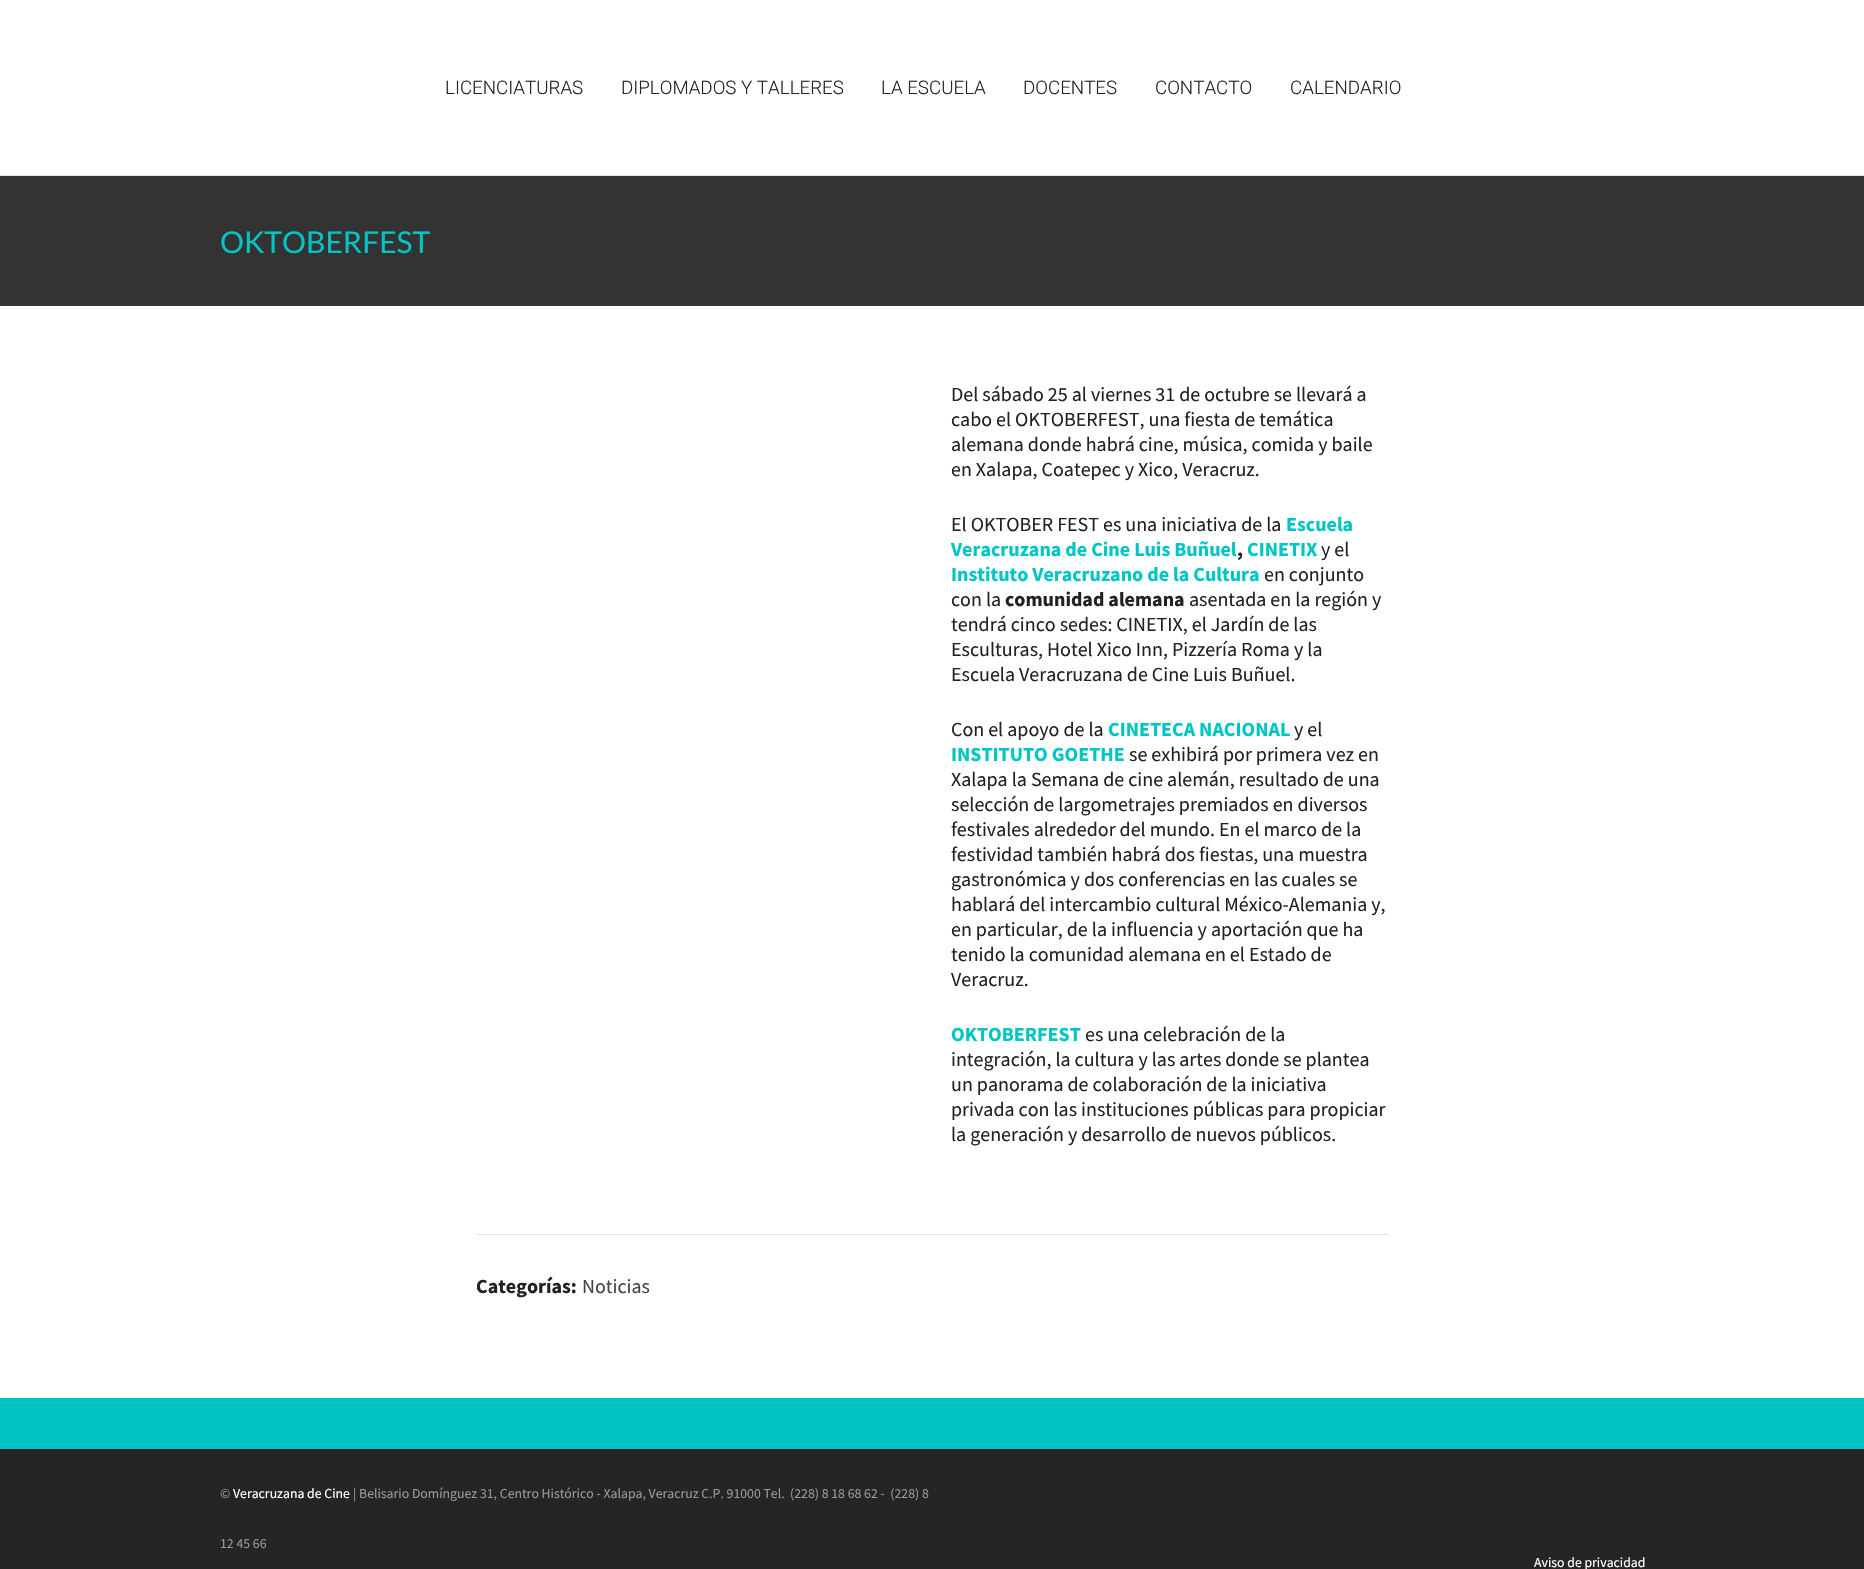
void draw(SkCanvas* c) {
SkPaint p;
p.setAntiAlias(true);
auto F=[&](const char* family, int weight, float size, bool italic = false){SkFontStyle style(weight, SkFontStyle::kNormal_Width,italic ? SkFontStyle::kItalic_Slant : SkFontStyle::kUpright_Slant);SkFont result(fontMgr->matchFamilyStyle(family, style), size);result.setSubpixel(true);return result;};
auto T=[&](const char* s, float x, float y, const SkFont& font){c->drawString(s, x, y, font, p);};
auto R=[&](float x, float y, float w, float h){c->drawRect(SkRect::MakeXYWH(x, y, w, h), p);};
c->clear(0xff00c5c5);
p.setColor(0xffffffff);
R(0,0,1864,175);
p.setColor(0xffe4e4e4);
R(0,175,1864,1);
auto f1 = F("Roboto",300,18.75);
p.setColor(0xff222222);
T("LICENCIATURAS",445,94,f1);
T("DIPLOMADOS Y TALLERES",621,94,f1);
T("LA ESCUELA",881,94,f1);
T("DOCENTES",1023,94,f1);
T("CONTACTO",1155,94,f1);
T("CALENDARIO",1290,94,f1);
p.setColor(0xffffffff);
R(0,306,1864,1092);
p.setColor(0xff333333);
R(0,176,1864,130);
auto f2 = F("Lato",400,30);
p.setColor(0xff00c5c5);
T("OKTOBERFEST",220,253,f2);
auto f3 = F("Source Sans Pro",400,20);
p.setColor(0xff222222);
T("Del sábado 25 al viernes 31 de octubre se llevará a",951,401,f3);
T("cabo el OKTOBERFEST, una fiesta de temática",951,426,f3);
T("alemana donde habrá cine, música, comida y baile",951,451,f3);
T("en Xalapa, Coatepec y Xico, Veracruz.",951,476,f3);
T("El OKTOBER FEST es una iniciativa de la",951,531,f3);
auto f4 = F("Source Sans Pro",700,20);
p.setColor(0xff00c5c5);
T("Escuela",1286,531,f4);
T("Veracruzana de Cine Luis Buñuel",951,556,f4);
p.setColor(0xff222222);
T(",",1237,556,f4);
p.setColor(0xff00c5c5);
T("CINETIX",1247,556,f4);
p.setColor(0xff222222);
T("y el",1321,556,f3);
p.setColor(0xff00c5c5);
T("Instituto Veracruzano de la Cultura",951,581,f4);
p.setColor(0xff222222);
T("en conjunto",1264,581,f3);
T("con la",951,606,f3);
T("comunidad alemana",1005,606,f4);
T("asentada en la región y",1189,606,f3);
T("tendrá cinco sedes: CINETIX, el Jardín de las",951,631,f3);
T("Esculturas, Hotel Xico Inn, Pizzería Roma y la",951,656,f3);
T("Escuela Veracruzana de Cine Luis Buñuel.",951,681,f3);
T("Con el apoyo de la",951,736,f3);
p.setColor(0xff00c5c5);
T("CINETECA NACIONAL",1108,736,f4);
p.setColor(0xff222222);
T("y el",1294,736,f3);
p.setColor(0xff00c5c5);
T("INSTITUTO GOETHE",951,761,f4);
p.setColor(0xff222222);
T("se exhibirá por primera vez en",1129,761,f3);
T("Xalapa la Semana de cine alemán, resultado de una",951,786,f3);
T("selección de largometrajes premiados en diversos",951,811,f3);
T("festivales alrededor del mundo. En el marco de la",951,836,f3);
T("festividad también habrá dos fiestas, una muestra",951,861,f3);
T("gastronómica y dos conferencias en las cuales se",951,886,f3);
T("hablará del intercambio cultural México-Alemania y,",951,911,f3);
T("en particular, de la influencia y aportación que ha",951,936,f3);
T("tenido la comunidad alemana en el Estado de",951,961,f3);
T("Veracruz.",951,986,f3);
p.setColor(0xff00c5c5);
T("OKTOBERFEST",951,1041,f4);
p.setColor(0xff222222);
T("es una celebración de la",1085,1041,f3);
T("integración, la cultura y las artes donde se plantea",951,1066,f3);
T("un panorama de colaboración de la iniciativa",951,1091,f3);
T("privada con las instituciones públicas para propiciar",951,1116,f3);
T("la generación y desarrollo de nuevos públicos.",951,1141,f3);
p.setColor(0xffe4e4e4);
R(476,1234,913,1);
p.setColor(0xff222222);
T("Categorías:",476,1293,f4);
p.setColor(0xff444444);
T("Noticias",582,1293,f3);
p.setColor(0xff252525);
R(0,1449,1864,120);
auto f5 = F("Source Sans Pro",400,13.75);
p.setColor(0xff999999);
T("©",220,1498,f5);
p.setColor(0xffffffff);
T("Veracruzana de Cine",233,1498,f5);
p.setColor(0xff999999);
T("| Belisario Domínguez 31, Centro Histórico - Xalapa, Veracruz C.P. 91000 Tel.  (228) 8 18 68 62 -  (228) 8",353,1498,f5);
T("12 45 66",220,1548,f5);
p.setColor(0xffffffff);
T("Aviso de privacidad",1534,1567,f5);
}
